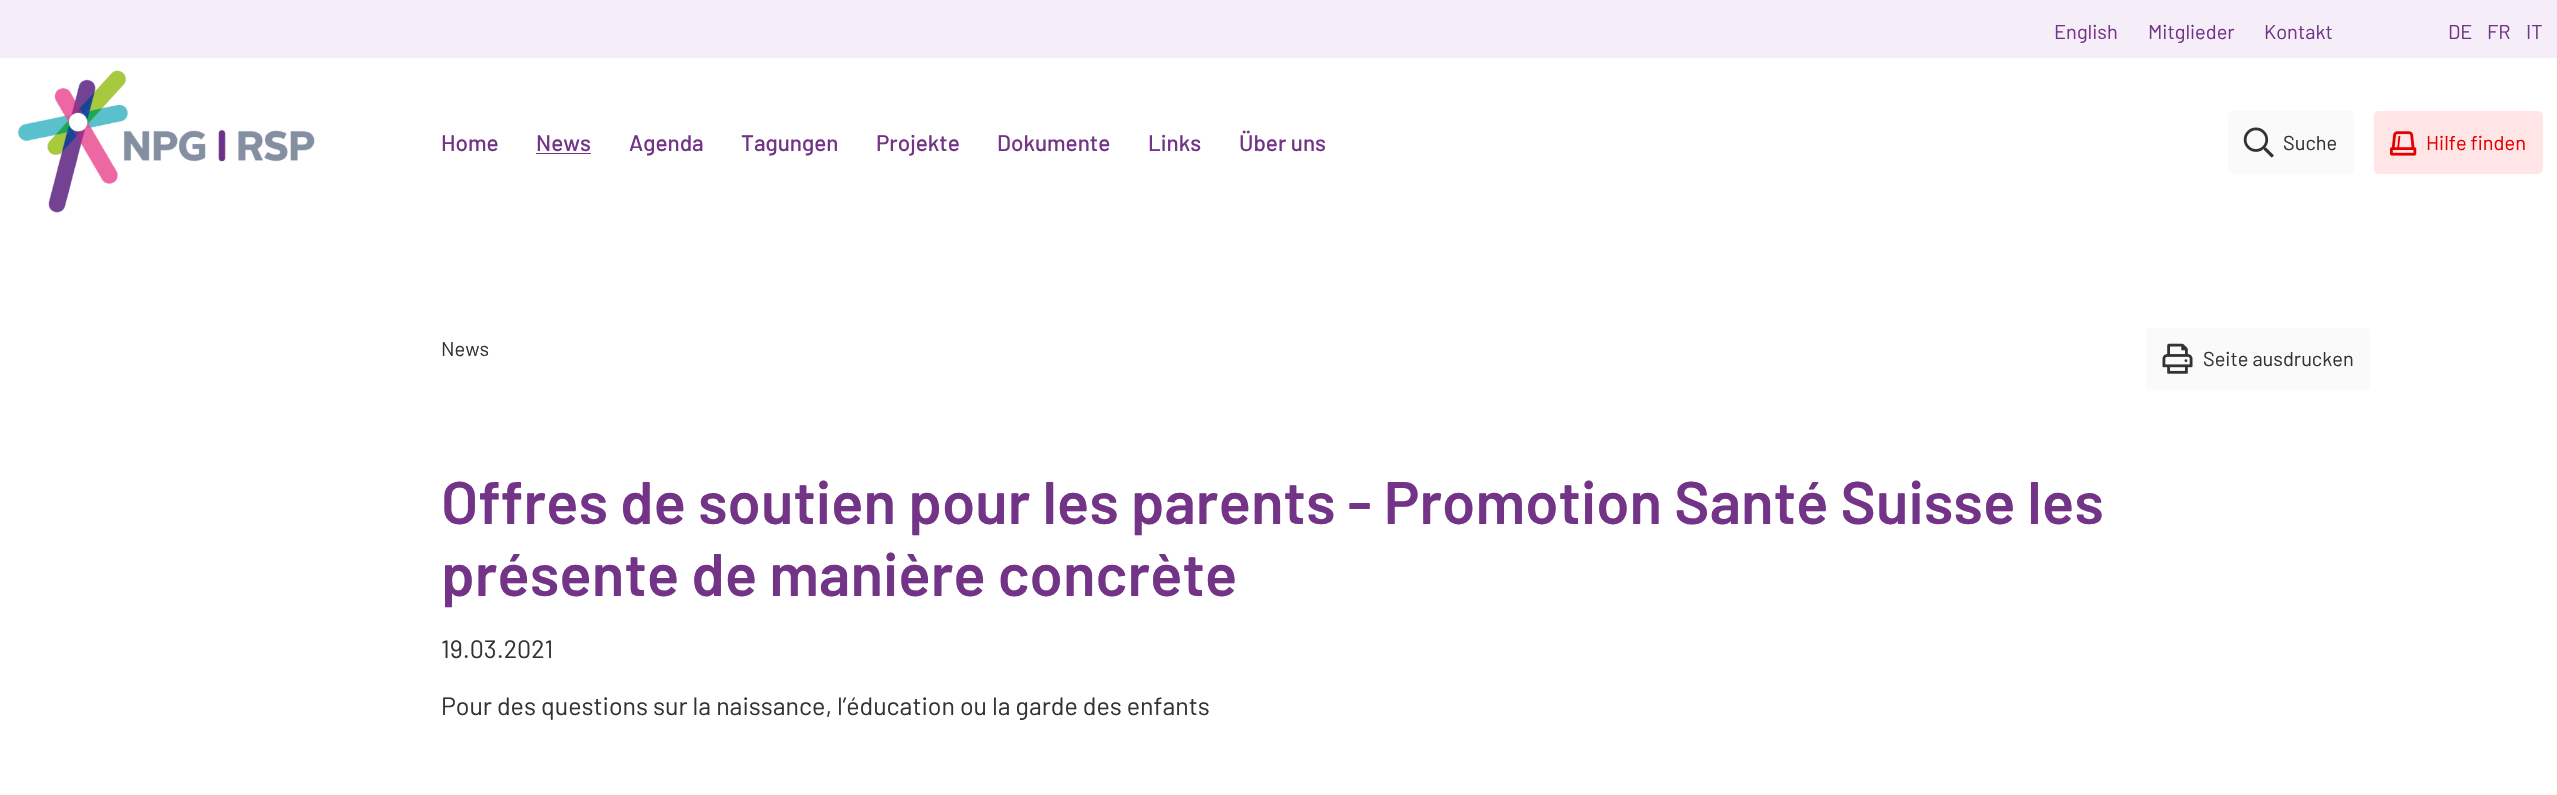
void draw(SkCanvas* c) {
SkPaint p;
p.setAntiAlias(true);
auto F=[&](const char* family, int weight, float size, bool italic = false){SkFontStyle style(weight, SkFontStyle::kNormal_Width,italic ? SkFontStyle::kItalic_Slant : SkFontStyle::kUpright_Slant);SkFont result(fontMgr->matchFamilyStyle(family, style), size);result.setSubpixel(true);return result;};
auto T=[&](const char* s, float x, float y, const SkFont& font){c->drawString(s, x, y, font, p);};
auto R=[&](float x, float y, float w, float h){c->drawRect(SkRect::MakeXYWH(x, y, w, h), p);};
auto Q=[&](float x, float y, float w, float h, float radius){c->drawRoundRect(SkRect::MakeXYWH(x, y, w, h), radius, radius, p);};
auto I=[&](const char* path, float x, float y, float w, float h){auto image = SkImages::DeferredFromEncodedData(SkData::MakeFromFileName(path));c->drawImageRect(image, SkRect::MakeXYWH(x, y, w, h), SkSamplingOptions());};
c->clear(0xffffffff);
p.setColor(0xfff5edf8);
R(0,0,2557,58);
auto f1 = F("Barlow",400,20);
p.setColor(0xff733488);
T("English",2054,39,f1);
T("Mitglieder",2148,39,f1);
T("Kontakt",2264,39,f1);
T("DE",2448,39,f1);
T("FR",2487,39,f1);
T("IT",2526,39,f1);
I("1.png",17,70,298,143);
auto f2 = F("Barlow",500,22.5);
T("Home",441,151,f2);
T("News",536,151,f2);
R(536,153,55,1);
T("Agenda",629,151,f2);
T("Tagungen",741,151,f2);
T("Projekte",876,151,f2);
T("Dokumente",997,151,f2);
T("Links",1148,151,f2);
T("Über uns",1239,151,f2);
p.setColor(0xfffafafa);
Q(2228,111,126,63,5);
I("2.png",2243,127,31,31);
p.setColor(0xff333333);
T("Suche",2283,150,f1);
p.setColor(0xffffe5e6);
Q(2374,111,169,63,5);
I("3.png",2390,131,27,25);
p.setColor(0xffe50000);
T("Hilfe finden",2426,150,f1);
p.setColor(0xff333333);
T("News",441,356,f1);
auto f3 = F("Barlow",600,60);
p.setColor(0xff733488);
T("Offres de soutien pour les parents - Promotion Santé Suisse les",441,524,f3);
T("présente de manière concrète",441,596,f3);
auto f4 = F("Barlow",400,25);
p.setColor(0xff333333);
T("19.03.2021",441,658,f4);
T("Pour des questions sur la naissance, l’éducation ou la garde des enfants",441,715,f4);
p.setColor(0xfffafafa);
Q(2146,328,224,62,5);
I("4.png",2162,343,31,31);
p.setColor(0xff333333);
T("Seite ausdrucken",2203,366,f1);
}
